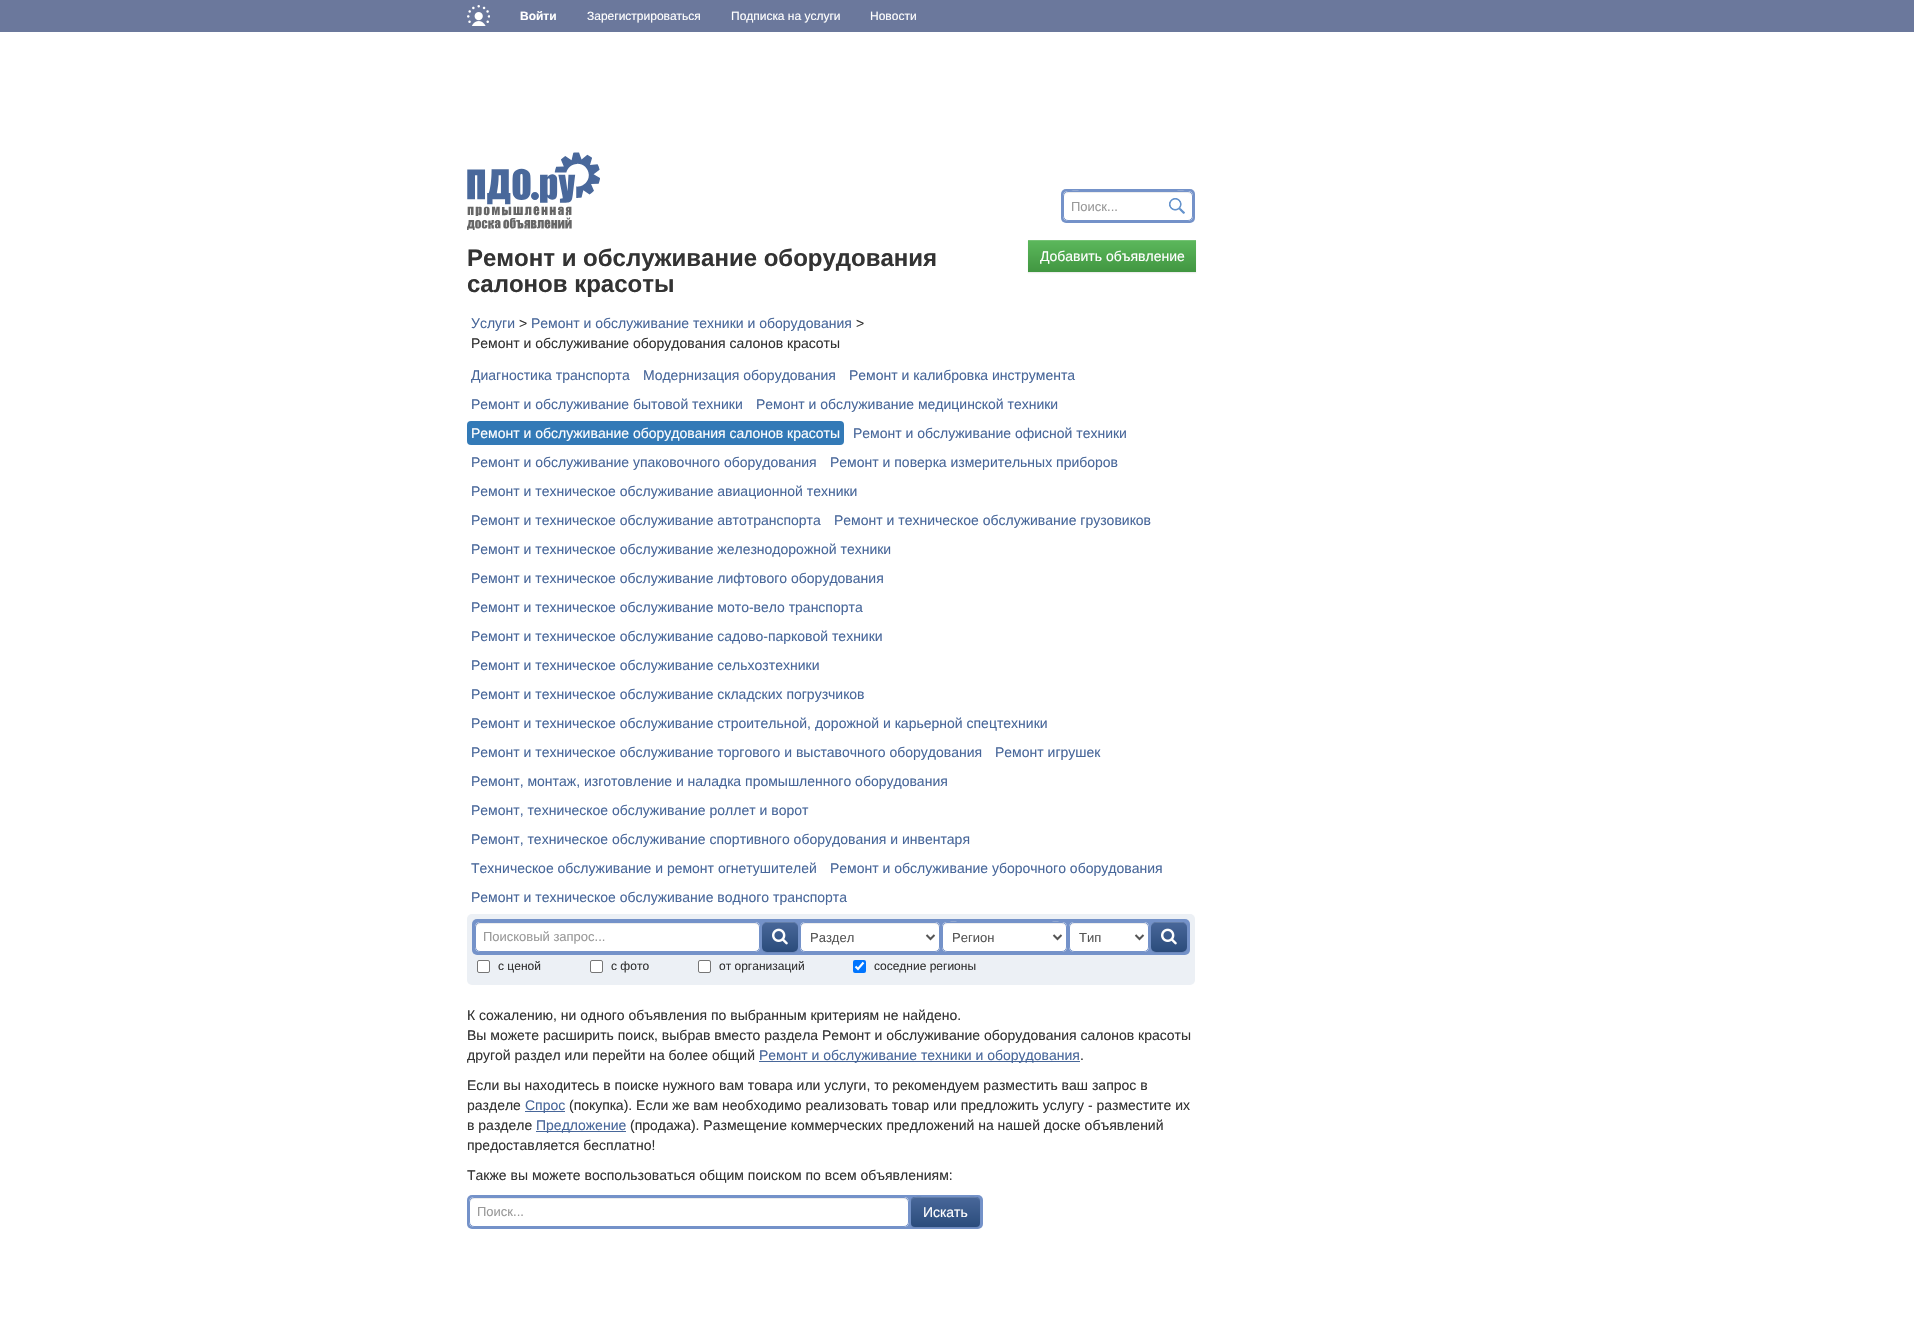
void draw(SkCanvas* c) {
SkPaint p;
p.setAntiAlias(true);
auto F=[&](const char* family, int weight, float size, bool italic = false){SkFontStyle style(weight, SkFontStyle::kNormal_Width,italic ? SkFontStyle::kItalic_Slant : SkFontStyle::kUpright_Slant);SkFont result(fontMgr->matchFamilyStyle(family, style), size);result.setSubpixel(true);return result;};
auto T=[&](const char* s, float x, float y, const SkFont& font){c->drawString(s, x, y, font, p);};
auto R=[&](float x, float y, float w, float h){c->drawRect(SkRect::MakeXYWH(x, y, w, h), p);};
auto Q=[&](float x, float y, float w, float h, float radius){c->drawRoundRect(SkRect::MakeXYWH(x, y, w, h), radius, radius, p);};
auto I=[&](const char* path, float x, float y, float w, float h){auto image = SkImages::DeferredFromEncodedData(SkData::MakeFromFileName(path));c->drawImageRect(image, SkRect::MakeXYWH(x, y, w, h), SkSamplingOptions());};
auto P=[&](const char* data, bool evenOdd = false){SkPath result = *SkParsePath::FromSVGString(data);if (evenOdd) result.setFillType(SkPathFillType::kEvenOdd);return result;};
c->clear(0xffffffff);
p.setColor(0xff6b789c);
R(0,0,1914,32);
I("1.png",467,5,23,21);
auto f1 = F("Liberation Sans",700,12);
p.setColor(0xffffffff);
T("Войти",520,20,f1);
auto f2 = F("Liberation Sans",400,12);
T("Зарегистрироваться",587,20,f2);
T("Подписка на услуги",731,20,f2);
T("Новости",870,20,f2);
I("2.png",467,152,133,78);
p.setColor(0xff7492c9);
Q(1061,189,134,34,5);
p.setColor(0xffffffff);
Q(1063,191,130,30,5);
I("3.png",1169,198,16,16);
p.setColor(0xffececec);
c->drawPath(P("M1068 193h120c2 0 4 2 4 4c0-10-22-5-24-5h-80c-2 0-24-5-24 5c0-2 2-4 4-4z"),p);
p.setStroke(true);
p.setStrokeWidth(1);
p.setColor(0xff7492c9);
c->drawRoundRect(SkRect::MakeXYWH(1063.5,191.5,129,29),4.5,4.5,p);
auto f3 = F("Liberation Sans",400,13);
p.setStroke(false);
p.setColor(0xff999999);
T("Поиск...",1071,211,f3);
auto f4 = F("Liberation Sans",700,24);
p.setColor(0xff333333);
T("Ремонт и обслуживание оборудования",467,266,f4);
T("салонов красоты",467,292,f4);
p.setColor(0x12000000);
p.setMaskFilter(SkMaskFilter::MakeBlur(kNormal_SkBlurStyle, .5));
c->drawRect(SkRect::MakeXYWH(1028,241,168,32),p);
p.setMaskFilter(nullptr);
{
const SkColor colors[] = {0xff5cb85c,0xff419641};
const float stops[] = {0,1};
const SkPoint ends[] = {{1112,240}, {1112,272}};
p.setShader(SkGradientShader::MakeLinear(ends, colors, stops, 2, SkTileMode::kClamp));
p.setAlpha(255);
}
R(1028,241,168,31);
p.setShader(nullptr);
p.setColor(0xff74c274);
R(1028,240,168,1);
auto f5 = F("Liberation Sans",400,14);
p.setColor(0xffffffff);
T("Добавить объявление",1040,261,f5);
p.setColor(0xff48679a);
T("Услуги",471,328,f5);
p.setColor(0xff333333);
T(">",519,328,f5);
p.setColor(0xff48679a);
T("Ремонт и обслуживание техники и оборудования",531,328,f5);
p.setColor(0xff333333);
T(">",856,328,f5);
T("Ремонт и обслуживание оборудования салонов красоты",471,348,f5);
p.setColor(0xff48679a);
T("Диагностика транспорта",471,380,f5);
T("Модернизация оборудования",643,380,f5);
T("Ремонт и калибровка инструмента",849,380,f5);
T("Ремонт и обслуживание бытовой техники",471,409,f5);
T("Ремонт и обслуживание медицинской техники",756,409,f5);
p.setColor(0xff337ab7);
Q(467,421,377,24,4);
p.setColor(0xffffffff);
T("Ремонт и обслуживание оборудования салонов красоты",471,438,f5);
p.setColor(0xff48679a);
T("Ремонт и обслуживание офисной техники",853,438,f5);
T("Ремонт и обслуживание упаковочного оборудования",471,467,f5);
T("Ремонт и поверка измерительных приборов",830,467,f5);
T("Ремонт и техническое обслуживание авиационной техники",471,496,f5);
T("Ремонт и техническое обслуживание автотранспорта",471,525,f5);
T("Ремонт и техническое обслуживание грузовиков",834,525,f5);
T("Ремонт и техническое обслуживание железнодорожной техники",471,554,f5);
T("Ремонт и техническое обслуживание лифтового оборудования",471,583,f5);
T("Ремонт и техническое обслуживание мото-вело транспорта",471,612,f5);
T("Ремонт и техническое обслуживание садово-парковой техники",471,641,f5);
T("Ремонт и техническое обслуживание сельхозтехники",471,670,f5);
T("Ремонт и техническое обслуживание складских погрузчиков",471,699,f5);
T("Ремонт и техническое обслуживание строительной, дорожной и карьерной спецтехники",471,728,f5);
T("Ремонт и техническое обслуживание торгового и выставочного оборудования",471,757,f5);
T("Ремонт игрушек",995,757,f5);
T("Ремонт, монтаж, изготовление и наладка промышленного оборудования",471,786,f5);
T("Ремонт, техническое обслуживание роллет и ворот",471,815,f5);
T("Ремонт, техническое обслуживание спортивного оборудования и инвентаря",471,844,f5);
T("Техническое обслуживание и ремонт огнетушителей",471,873,f5);
T("Ремонт и обслуживание уборочного оборудования",830,873,f5);
T("Ремонт и техническое обслуживание водного транспорта",471,902,f5);
p.setColor(0xffecf0f5);
Q(467,914,728,71,5);
p.setColor(0xff7492c9);
Q(472,919,718,36,5);
p.setColor(0x12000000);
p.setMaskFilter(SkMaskFilter::MakeBlur(kNormal_SkBlurStyle, .5));
c->drawRoundRect(SkRect::MakeXYWH(762,923,36,30),5,5,p);
p.setMaskFilter(nullptr);
p.setColor(0xffffffff);
Q(475,922,285,30,5);
p.setColor(0xffececec);
c->drawPath(P("M480 924h275c2 0 4 2 4 4c0-3-1-5-4-5h-275c-3 0-4 2-4 5c0-2 2-4 4-4z"),p);
p.setStroke(true);
p.setColor(0xff7492c9);
c->drawRoundRect(SkRect::MakeXYWH(475.5,922.5,284,29),4.5,4.5,p);
p.setStroke(false);
p.setColor(0xff999999);
T("Поисковый запрос...",483,941,f3);
{
const SkColor colors[] = {0xff48679a,0xff2b4c7b};
const float stops[] = {0,1};
const SkPoint ends[] = {{780,922}, {780,952}};
p.setShader(SkGradientShader::MakeLinear(ends, colors, stops, 2, SkTileMode::kClamp));
p.setAlpha(255);
}
Q(762,922,36,30,5);
p.setShader(nullptr);
p.setColor(0x26ffffff);
c->drawPath(P("M767 923h26c3 0 5 2 5 5c0-6.5-4-6-9.5-6h-17c-5.5 0-9.5-.5-9.5 6c0-3 2-5 5-5z"),p);
I("4.png",772,928,16,17);
p.setColor(0xffffffff);
Q(800,922,140,30,5);
p.setColor(0xffececec);
c->drawPath(P("M805 924h130c2 0 4 2 4 4v-1c0-2-2-4-4-4h-130c-2 0-4 2-4 4v1c0-2 2-4 4-4z"),p);
p.setStroke(true);
p.setColor(0xff7492c9);
c->drawRoundRect(SkRect::MakeXYWH(800.5,922.5,139,29),4.5,4.5,p);
p.setStrokeWidth(2);
p.setColor(0xff555555);
c->drawPath(P("M926.5 935l4 4l4-4"),p);
p.setStroke(false);
T("Раздел",810,942,f3);
p.setColor(0xffffffff);
Q(942,922,125,30,5);
p.setColor(0xffececec);
c->drawPath(P("M947 924h115c2 0 4 2 4 4c0-10-20-5-23-5h-77c-3 0-23-5-23 5c0-2 2-4 4-4z"),p);
p.setStroke(true);
p.setStrokeWidth(1);
p.setColor(0xff7492c9);
c->drawRoundRect(SkRect::MakeXYWH(942.5,922.5,124,29),4.5,4.5,p);
p.setStrokeWidth(2);
p.setColor(0xff555555);
c->drawPath(P("M1053.5 935l4 4l4-4"),p);
p.setStroke(false);
T("Регион",952,942,f3);
p.setColor(0x12000000);
p.setMaskFilter(SkMaskFilter::MakeBlur(kNormal_SkBlurStyle, .5));
c->drawRoundRect(SkRect::MakeXYWH(1151,923,36,30),5,5,p);
p.setMaskFilter(nullptr);
p.setColor(0xffffffff);
Q(1069,922,80,30,5);
p.setColor(0xffececec);
c->drawPath(P("M1074 924h70c2 0 4 2 4 4c0-8-11-5-16-5h-46c-5 0-16-3-16 5c0-2 2-4 4-4z"),p);
p.setStroke(true);
p.setStrokeWidth(1);
p.setColor(0xff7492c9);
c->drawRoundRect(SkRect::MakeXYWH(1069.5,922.5,79,29),4.5,4.5,p);
p.setStrokeWidth(2);
p.setColor(0xff555555);
c->drawPath(P("M1135.5 935l4 4l4-4"),p);
p.setStroke(false);
T("Тип",1079,942,f3);
{
const SkColor colors[] = {0xff48679a,0xff2b4c7b};
const float stops[] = {0,1};
const SkPoint ends[] = {{1169,922}, {1169,952}};
p.setShader(SkGradientShader::MakeLinear(ends, colors, stops, 2, SkTileMode::kClamp));
p.setAlpha(255);
}
Q(1151,922,36,30,5);
p.setShader(nullptr);
p.setColor(0x26ffffff);
c->drawPath(P("M1156 923h26c3 0 5 2 5 5c0-6.5-4-6-9.5-6h-17c-5.5 0-9.5-.5-9.5 6c0-3 2-5 5-5z"),p);
I("4.png",1161,928,16,17);
p.setColor(0xffffffff);
c->drawRoundRect(SkRect::MakeXYWH(477.5,960.5,12,12),1.5,1.5,p);
p.setStroke(true);
p.setStrokeWidth(1);
p.setColor(0xff767676);
c->drawRoundRect(SkRect::MakeXYWH(477.5,960.5,12,12),1.5,1.5,p);
p.setStroke(false);
p.setColor(0xff333333);
T("с ценой",498,970,f2);
p.setColor(0xffffffff);
c->drawRoundRect(SkRect::MakeXYWH(590.5,960.5,12,12),1.5,1.5,p);
p.setStroke(true);
p.setColor(0xff767676);
c->drawRoundRect(SkRect::MakeXYWH(590.5,960.5,12,12),1.5,1.5,p);
p.setStroke(false);
p.setColor(0xff333333);
T("с фото",611,970,f2);
p.setColor(0xffffffff);
c->drawRoundRect(SkRect::MakeXYWH(698.5,960.5,12,12),1.5,1.5,p);
p.setStroke(true);
p.setColor(0xff767676);
c->drawRoundRect(SkRect::MakeXYWH(698.5,960.5,12,12),1.5,1.5,p);
p.setStroke(false);
p.setColor(0xff333333);
T("от организаций",719,970,f2);
p.setColor(0xff0075ff);
Q(853,960,13,13,2);
p.setStroke(true);
p.setStrokeWidth(2.1);
p.setColor(0xffffffff);
c->drawPath(P("M855.5 966.5l2.5 2.5l5.5-6.5"),p);
p.setStroke(false);
p.setColor(0xff333333);
T("соседние регионы",874,970,f2);
T("К сожалению, ни одного объявления по выбранным критериям не найдено.",467,1020,f5);
T("Вы можете расширить поиск, выбрав вместо раздела Ремонт и обслуживание оборудования салонов красоты",467,1040,f5);
T("другой раздел или перейти на более общий",467,1060,f5);
p.setColor(0xff48679a);
R(759,1061,321,1);
T("Ремонт и обслуживание техники и оборудования",759,1060,f5);
p.setColor(0xff333333);
T(".",1080,1060,f5);
T("Если вы находитесь в поиске нужного вам товара или услуги, то рекомендуем разместить ваш запрос в",467,1090,f5);
T("разделе",467,1110,f5);
p.setColor(0xff48679a);
R(525,1111,40,1);
T("Спрос",525,1110,f5);
p.setColor(0xff333333);
T("(покупка). Если же вам необходимо реализовать товар или предложить услугу - разместите их",569,1110,f5);
T("в разделе",467,1130,f5);
p.setColor(0xff48679a);
R(536,1131,90,1);
T("Предложение",536,1130,f5);
p.setColor(0xff333333);
T("(продажа). Размещение коммерческих предложений на нашей доске объявлений",630,1130,f5);
T("предоставляется бесплатно!",467,1150,f5);
T("Также вы можете воспользоваться общим поиском по всем объявлениям:",467,1180,f5);
p.setColor(0xff7492c9);
Q(467,1195,516,34,5);
p.setColor(0xffffffff);
Q(469,1197,440,30,5);
p.setColor(0xffececec);
c->drawPath(P("M474 1199h430c2 0 4 2 4 4c0-3-1-5-4-5h-430c-3 0-4 2-4 5c0-2 2-4 4-4z"),p);
p.setStroke(true);
p.setStrokeWidth(1);
p.setColor(0xff7492c9);
c->drawRoundRect(SkRect::MakeXYWH(469.5,1197.5,439,29),4.5,4.5,p);
p.setStroke(false);
p.setColor(0xff999999);
T("Поиск...",477,1216,f3);
p.setColor(0x12000000);
p.setMaskFilter(SkMaskFilter::MakeBlur(kNormal_SkBlurStyle, .5));
c->drawRoundRect(SkRect::MakeXYWH(911,1198,69,30),4,4,p);
p.setMaskFilter(nullptr);
{
const SkColor colors[] = {0xff48679a,0xff2b4c7b};
const float stops[] = {0,1};
const SkPoint ends[] = {{946,1197}, {946,1227}};
p.setShader(SkGradientShader::MakeLinear(ends, colors, stops, 2, SkTileMode::kClamp));
p.setAlpha(255);
}
Q(911,1197,69,30,4);
p.setShader(nullptr);
p.setColor(0xff637ea8);
c->drawPath(P("M915 1198h61c2 0 4 2 4 4c0-7-9-5-14-5h-41c-5 0-14-2-14 5c0-2 2-4 4-4z"),p);
p.setColor(0xffffffff);
T("Искать",923,1217,f5);
}
